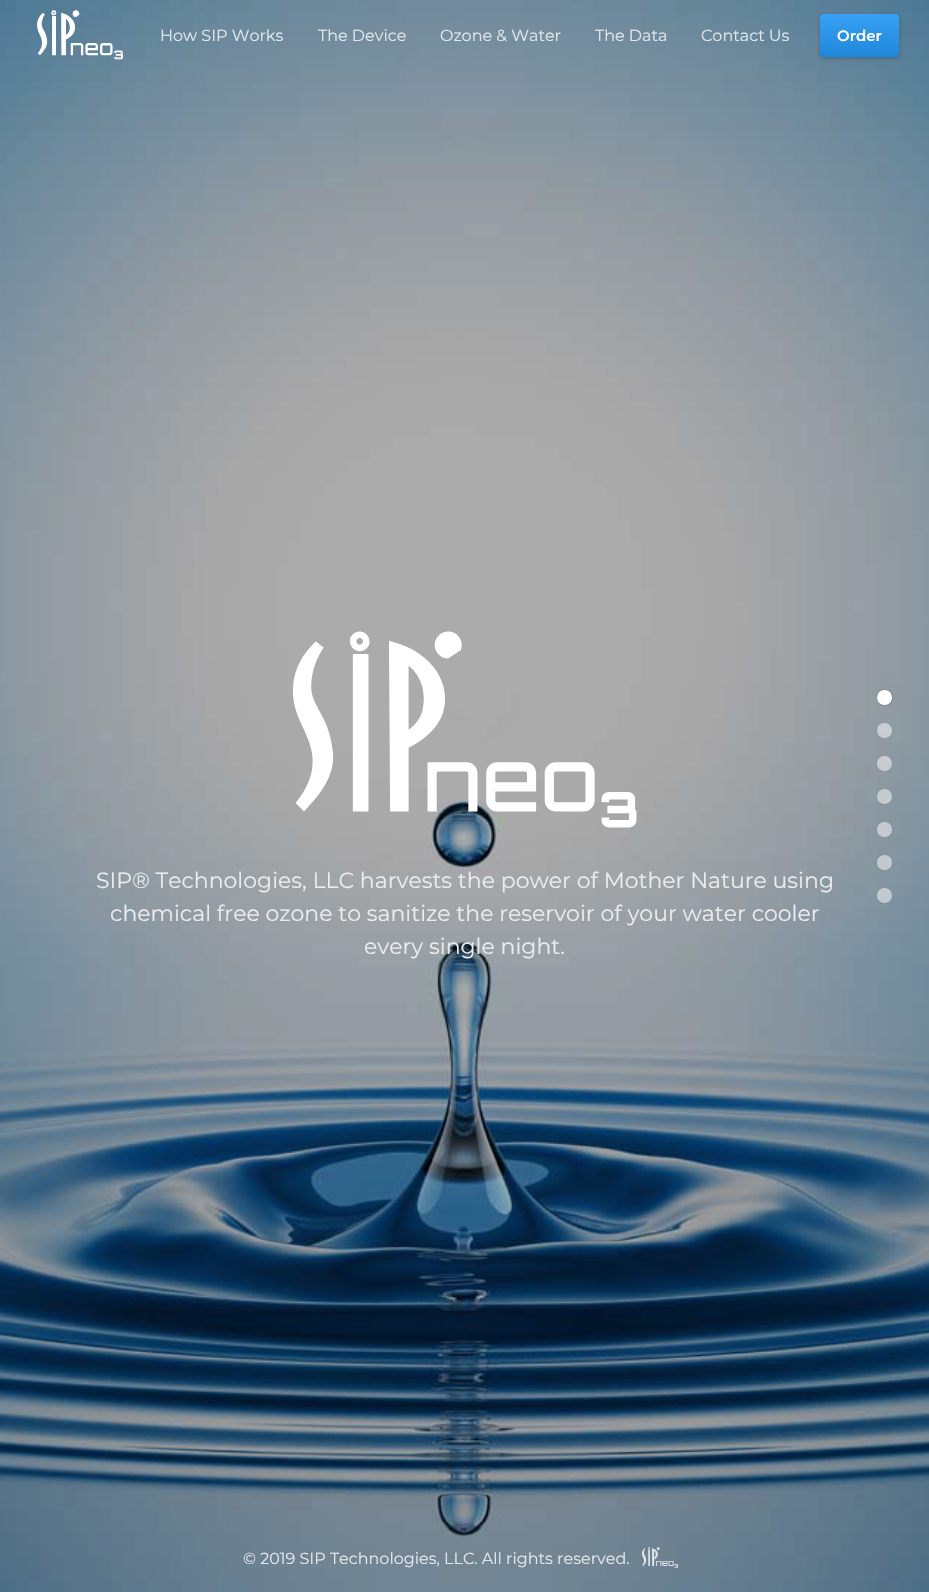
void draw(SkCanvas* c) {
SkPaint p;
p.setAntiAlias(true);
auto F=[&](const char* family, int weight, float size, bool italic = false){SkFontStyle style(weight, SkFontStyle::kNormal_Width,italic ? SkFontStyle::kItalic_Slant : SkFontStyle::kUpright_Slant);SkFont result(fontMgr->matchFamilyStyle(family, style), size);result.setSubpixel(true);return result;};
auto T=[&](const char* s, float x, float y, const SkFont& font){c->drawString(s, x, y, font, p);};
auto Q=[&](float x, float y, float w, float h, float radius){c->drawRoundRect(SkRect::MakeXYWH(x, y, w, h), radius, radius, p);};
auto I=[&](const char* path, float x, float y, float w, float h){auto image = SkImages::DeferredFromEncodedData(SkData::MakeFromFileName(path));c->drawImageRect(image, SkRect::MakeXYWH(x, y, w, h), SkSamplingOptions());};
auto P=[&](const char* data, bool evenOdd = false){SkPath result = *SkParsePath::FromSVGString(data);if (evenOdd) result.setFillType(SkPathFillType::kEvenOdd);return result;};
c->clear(0xffffffff);
I("2.png",0,0,929,1592);
I("1.png",37,10,86,50);
auto f1 = F("Montserrat",400,16);
p.setColor(0xffe1e7eb);
T("How SIP Works",160,41,f1);
T("The Device",318,41,f1);
T("Ozone & Water",440,41,f1);
T("The Data",595,41,f1);
T("Contact Us",701,41,f1);
p.setColor(0x1a000000);
p.setMaskFilter(SkMaskFilter::MakeBlur(kNormal_SkBlurStyle, 2));
c->drawRoundRect(SkRect::MakeXYWH(820,16,79,43),4,4,p);
p.setMaskFilter(nullptr);
p.setMaskFilter(SkMaskFilter::MakeBlur(kNormal_SkBlurStyle, 2));
c->drawRoundRect(SkRect::MakeXYWH(820,15,79,43),4,4,p);
p.setMaskFilter(nullptr);
p.setColor(0xff2196f3);
Q(820,14,79,43,4);
{
const SkColor colors[] = {0x1affffff,0x1a000000};
const float stops[] = {0,1};
const SkPoint ends[] = {{860,14}, {860,57}};
p.setShader(SkGradientShader::MakeLinear(ends, colors, stops, 2, SkTileMode::kClamp));
p.setAlpha(255);
}
Q(820,14,79,43,4);
auto f2 = F("Montserrat",600,15);
p.setShader(nullptr);
p.setColor(0xffffffff);
T("Order",837,41,f2);
p.setColor(0xff303030);
p.setMaskFilter(SkMaskFilter::MakeBlur(kNormal_SkBlurStyle, .5));
c->drawRoundRect(SkRect::MakeXYWH(877,690,15,15),7,7,p);
p.setMaskFilter(nullptr);
p.setColor(0xffffffff);
Q(877,690,15,15,7);
c->save();
c->clipPath(P("M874 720h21v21h-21zm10 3h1c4 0 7 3 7 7v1c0 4-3 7-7 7h-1c-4 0-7-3-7-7v-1c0-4 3-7 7-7z",true),true);
p.setColor(0x80303030);
p.setMaskFilter(SkMaskFilter::MakeBlur(kNormal_SkBlurStyle, .5));
c->drawRoundRect(SkRect::MakeXYWH(877,723,15,15),7,7,p);
p.setMaskFilter(nullptr);
c->restore();
p.setColor(0x80ffffff);
Q(877,723,15,15,7);
c->save();
c->clipPath(P("M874 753h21v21h-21zm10 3h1c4 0 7 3 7 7v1c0 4-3 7-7 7h-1c-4 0-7-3-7-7v-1c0-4 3-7 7-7z",true),true);
p.setColor(0x80303030);
p.setMaskFilter(SkMaskFilter::MakeBlur(kNormal_SkBlurStyle, .5));
c->drawRoundRect(SkRect::MakeXYWH(877,756,15,15),7,7,p);
p.setMaskFilter(nullptr);
c->restore();
p.setColor(0x80ffffff);
Q(877,756,15,15,7);
p.setColor(0x80303030);
p.setMaskFilter(SkMaskFilter::MakeBlur(kNormal_SkBlurStyle, .5));
c->drawRoundRect(SkRect::MakeXYWH(877,789,15,15),7,7,p);
p.setMaskFilter(nullptr);
p.setColor(0xffc5ccd0);
Q(877,789,15,15,7);
c->save();
c->clipPath(P("M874 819h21v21h-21zm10 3h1c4 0 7 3 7 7v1c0 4-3 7-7 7h-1c-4 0-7-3-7-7v-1c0-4 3-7 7-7z",true),true);
p.setColor(0x80303030);
p.setMaskFilter(SkMaskFilter::MakeBlur(kNormal_SkBlurStyle, .5));
c->drawRoundRect(SkRect::MakeXYWH(877,822,15,15),7,7,p);
p.setMaskFilter(nullptr);
c->restore();
p.setColor(0x80ffffff);
Q(877,822,15,15,7);
c->save();
c->clipPath(P("M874 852h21v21h-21zm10 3h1c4 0 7 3 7 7v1c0 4-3 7-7 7h-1c-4 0-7-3-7-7v-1c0-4 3-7 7-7z",true),true);
p.setColor(0x80303030);
p.setMaskFilter(SkMaskFilter::MakeBlur(kNormal_SkBlurStyle, .5));
c->drawRoundRect(SkRect::MakeXYWH(877,855,15,15),7,7,p);
p.setMaskFilter(nullptr);
c->restore();
p.setColor(0x80ffffff);
Q(877,855,15,15,7);
c->save();
c->clipPath(P("M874 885h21v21h-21zm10 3h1c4 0 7 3 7 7v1c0 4-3 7-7 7h-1c-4 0-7-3-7-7v-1c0-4 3-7 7-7z",true),true);
p.setColor(0x80303030);
p.setMaskFilter(SkMaskFilter::MakeBlur(kNormal_SkBlurStyle, .5));
c->drawRoundRect(SkRect::MakeXYWH(877,888,15,15),7,7,p);
p.setMaskFilter(nullptr);
c->restore();
p.setColor(0x80ffffff);
Q(877,888,15,15,7);
I("3.png",293,631,344,197);
auto f3 = F("Montserrat",400,22);
p.setColor(0xffebeced);
T("SIP® Technologies, LLC harvests the power of Mother Nature using",96,888,f3);
T("chemical free ozone to sanitize the reservoir of your water cooler",110,921,f3);
T("every single night.",364,954,f3);
p.setColor(0xffe1e7eb);
T("© 2019 SIP Technologies, LLC. All rights reserved.",243,1564,f1);
I("4.png",642,1547,37,21);
}
